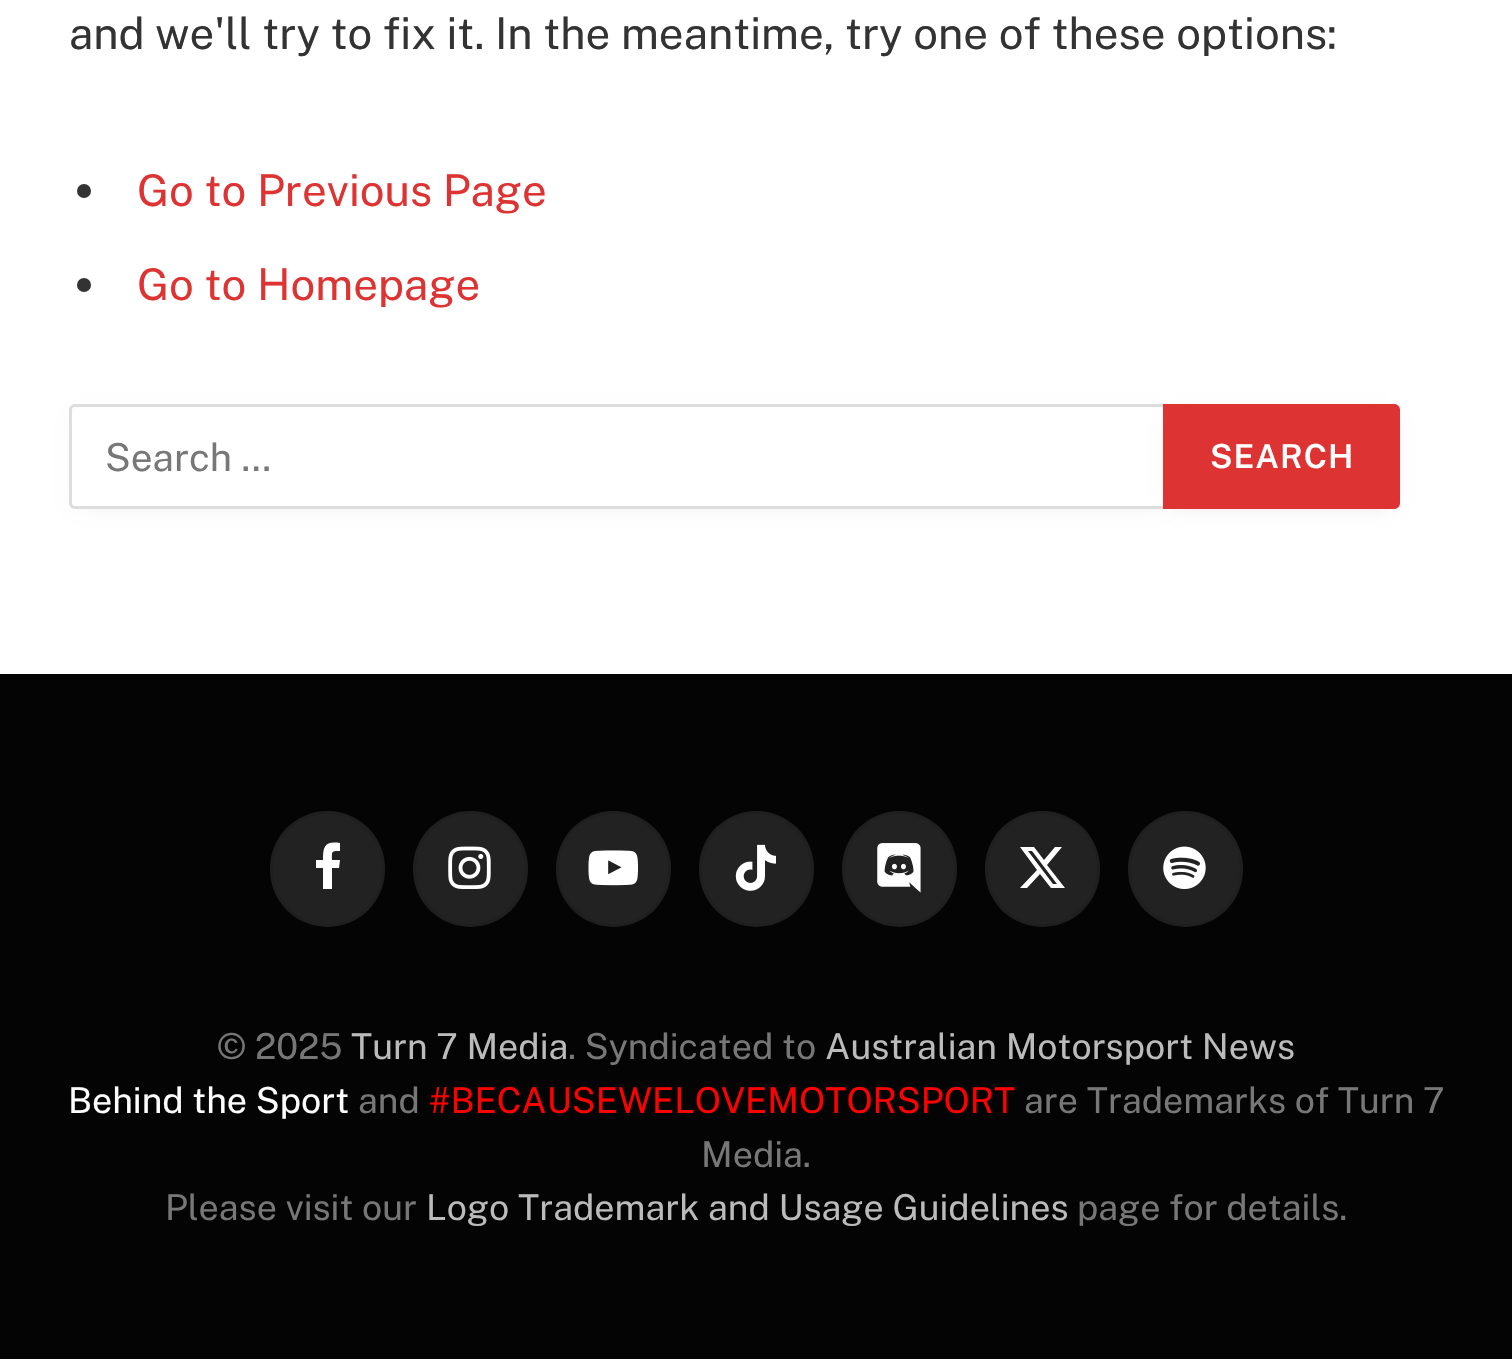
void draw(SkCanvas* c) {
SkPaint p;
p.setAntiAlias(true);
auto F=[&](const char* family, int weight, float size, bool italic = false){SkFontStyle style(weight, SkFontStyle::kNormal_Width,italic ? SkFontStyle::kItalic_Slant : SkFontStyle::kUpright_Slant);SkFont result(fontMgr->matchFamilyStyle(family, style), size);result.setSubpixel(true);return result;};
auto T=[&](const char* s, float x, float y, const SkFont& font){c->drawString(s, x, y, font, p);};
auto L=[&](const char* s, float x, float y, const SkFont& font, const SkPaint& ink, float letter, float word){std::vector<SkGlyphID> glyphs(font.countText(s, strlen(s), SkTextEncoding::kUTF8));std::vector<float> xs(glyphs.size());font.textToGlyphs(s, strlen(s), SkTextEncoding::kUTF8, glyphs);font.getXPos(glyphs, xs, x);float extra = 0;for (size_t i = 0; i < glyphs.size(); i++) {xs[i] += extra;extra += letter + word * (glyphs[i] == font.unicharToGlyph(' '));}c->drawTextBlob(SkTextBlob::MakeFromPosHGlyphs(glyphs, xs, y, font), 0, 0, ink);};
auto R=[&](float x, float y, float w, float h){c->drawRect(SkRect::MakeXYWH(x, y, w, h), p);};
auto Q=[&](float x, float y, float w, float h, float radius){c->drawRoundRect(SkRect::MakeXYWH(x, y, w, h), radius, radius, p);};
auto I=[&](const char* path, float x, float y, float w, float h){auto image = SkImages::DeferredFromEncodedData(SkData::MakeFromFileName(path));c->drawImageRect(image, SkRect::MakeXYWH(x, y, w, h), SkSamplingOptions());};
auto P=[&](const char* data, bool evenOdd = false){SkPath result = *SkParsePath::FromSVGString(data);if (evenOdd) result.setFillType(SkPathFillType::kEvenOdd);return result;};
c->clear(0xffffffff);
auto f1 = F("Public Sans",400,43.8);
p.setColor(0xff333333);
T("and we'll try to fix it. In the meantime, try one of these options:",69,49,f1);
c->drawCircle(84,191,7,p);
p.setColor(0xffdd3333);
T("Go to Previous Page",137,206,f1);
p.setColor(0xff333333);
c->drawCircle(84,285,7,p);
p.setColor(0xffdd3333);
T("Go to Homepage",137,300,f1);
p.setColor(0x1a000000);
p.setMaskFilter(SkMaskFilter::MakeBlur(kNormal_SkBlurStyle, 9.5));
c->drawRect(SkRect::MakeXYWH(80,421,1078,82),p);
p.setMaskFilter(nullptr);
p.setColor(0xffffffff);
c->drawRoundRect(SkRect::MakeXYWH(70.5,405.5,1097,102),4.5,4.5,p);
p.setStroke(true);
p.setStrokeWidth(3);
p.setColor(0xffdddddd);
c->drawRoundRect(SkRect::MakeXYWH(70.5,405.5,1097,102),4.5,4.5,p);
auto f2 = F("Public Sans",400,38.5);
p.setStroke(false);
p.setColor(0xff777777);
T("Search …",105,471,f2);
p.setColor(0x29000000);
p.setMaskFilter(SkMaskFilter::MakeBlur(kNormal_SkBlurStyle, 9.5));
c->drawRect(SkRect::MakeXYWH(1174,421,215,82),p);
p.setMaskFilter(nullptr);
p.setColor(0xffdd3333);
c->drawPath(P("M1163 404h231c3.5 0 6 2.5 6 6v93c0 3.5-2.5 6-6 6h-231z"),p);
auto f3 = F("Public Sans",600,33);
p.setColor(0xffffffff);
L("SEARCH",1210,468,f3,p,1,0);
p.setColor(0xff040404);
R(0,674,1512,685);
p.setColor(0xff222222);
Q(270,811,115,116,57.5);
p.setStroke(true);
p.setColor(0x17000000);
c->drawRoundRect(SkRect::MakeXYWH(271.5,812.5,112,113),56,56,p);
p.setStroke(false);
p.setColor(0xffffffff);
c->drawPath(P("M340 843v8c-9 0-8 0-8 9h8l-1 8h-7v21h-9v-21h-7v-8h7c0-14 2-19 17-17z"),p);
p.setColor(0xff222222);
Q(413,811,115,116,57.5);
p.setStroke(true);
p.setColor(0x17000000);
c->drawRoundRect(SkRect::MakeXYWH(414.5,812.5,112,113),56,56,p);
I("1.png",448,846,43,43);
p.setStroke(false);
p.setColor(0xff222222);
Q(556,811,115,116,57.5);
p.setStroke(true);
p.setColor(0x17000000);
c->drawRoundRect(SkRect::MakeXYWH(557.5,812.5,112,113),56,56,p);
I("2.png",588,850,50,36);
p.setStroke(false);
p.setColor(0xff222222);
Q(699,811,115,116,57.5);
p.setStroke(true);
p.setColor(0x17000000);
c->drawRoundRect(SkRect::MakeXYWH(700.5,812.5,112,113),56,56,p);
I("3.png",735,844,41,47);
p.setStroke(false);
p.setColor(0xff222222);
Q(842,811,115,116,57.5);
p.setStroke(true);
p.setColor(0x17000000);
c->drawRoundRect(SkRect::MakeXYWH(843.5,812.5,112,113),56,56,p);
I("4.png",877,843,44,50);
p.setStroke(false);
p.setColor(0xff222222);
Q(985,811,115,116,57.5);
p.setStroke(true);
p.setColor(0x17000000);
c->drawRoundRect(SkRect::MakeXYWH(986.5,812.5,112,113),56,56,p);
p.setStroke(false);
p.setColor(0xffffffff);
c->drawPath(P("M1055 847h7l-15 18l18 23h-14l-11-14l-13 14h-7l17-18l-17-23h14l10 13zm-2 37h4l-25-33h-4z"),p);
p.setColor(0xff222222);
Q(1128,811,115,116,57.5);
p.setStroke(true);
p.setColor(0x17000000);
c->drawRoundRect(SkRect::MakeXYWH(1129.5,812.5,112,113),56,56,p);
I("5.png",1163,846,43,43);
auto f4 = F("Public Sans",400,35.75);
p.setStroke(false);
p.setColor(0xff777777);
T("© 2025",217,1059,f4);
p.setColor(0xffbbbbbb);
T("Turn 7 Media",351,1059,f4);
p.setColor(0xff777777);
T(". Syndicated to",568,1059,f4);
p.setColor(0xffbbbbbb);
T("Australian Motorsport News",825,1059,f4);
p.setColor(0xffffffff);
T("Behind the Sport",68,1113,f4);
p.setColor(0xff777777);
T("and",358,1113,f4);
p.setColor(0xffff0000);
T("#BECAUSEWELOVEMOTORSPORT",429,1113,f4);
p.setColor(0xff777777);
T("are Trademarks of Turn 7",1024,1113,f4);
T("Media.",701,1167,f4);
T("Please visit our",165,1220,f4);
p.setColor(0xffbbbbbb);
T("Logo Trademark and Usage Guidelines",426,1220,f4);
p.setColor(0xff777777);
T("page for details.",1077,1220,f4);
}
